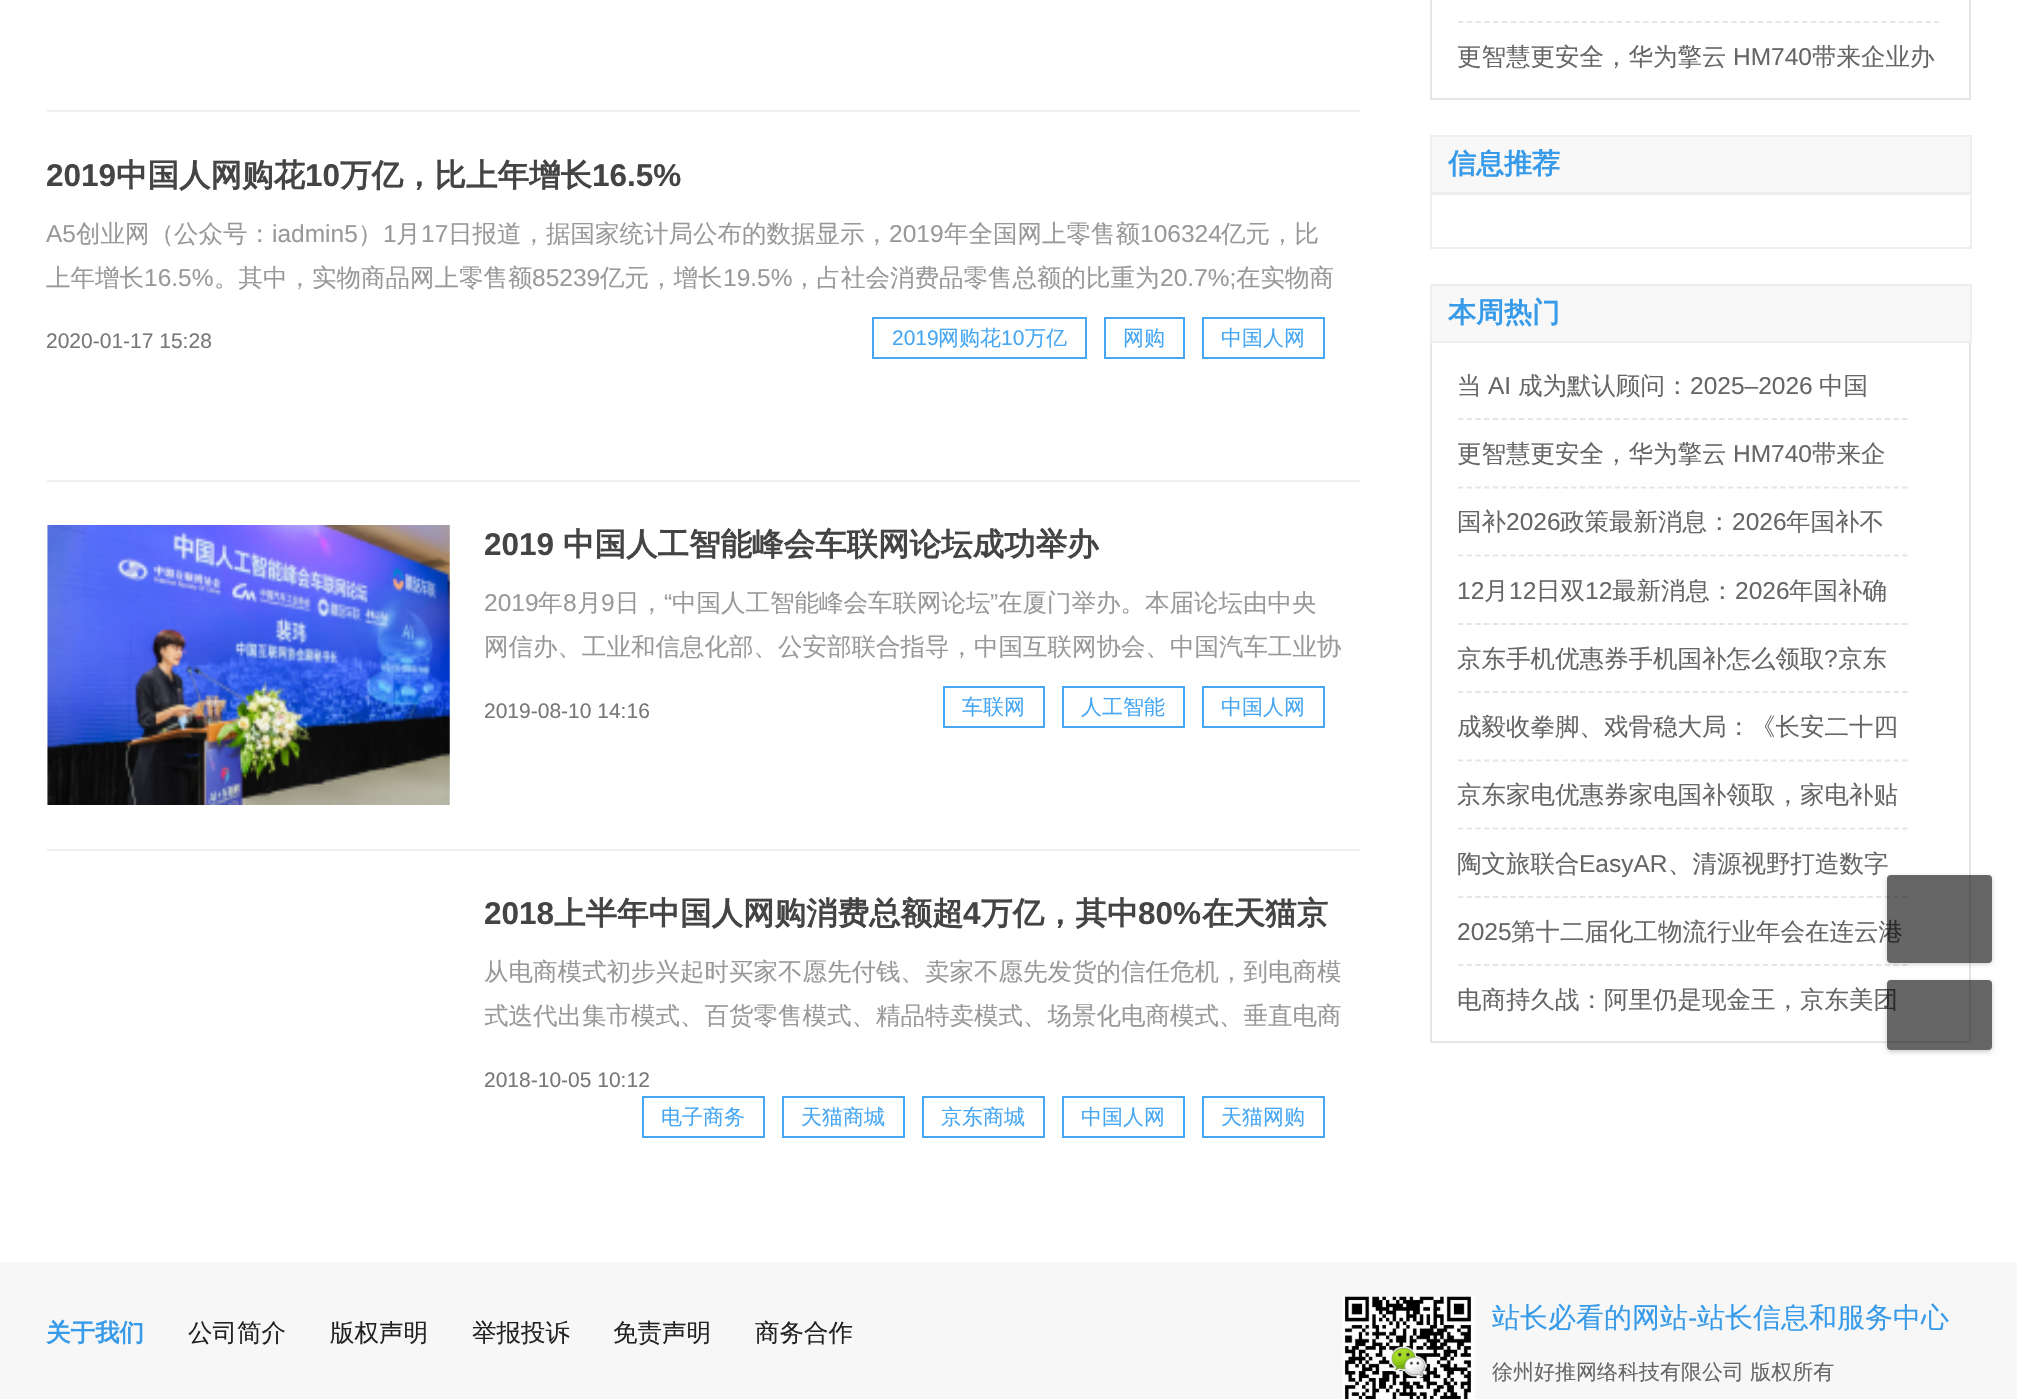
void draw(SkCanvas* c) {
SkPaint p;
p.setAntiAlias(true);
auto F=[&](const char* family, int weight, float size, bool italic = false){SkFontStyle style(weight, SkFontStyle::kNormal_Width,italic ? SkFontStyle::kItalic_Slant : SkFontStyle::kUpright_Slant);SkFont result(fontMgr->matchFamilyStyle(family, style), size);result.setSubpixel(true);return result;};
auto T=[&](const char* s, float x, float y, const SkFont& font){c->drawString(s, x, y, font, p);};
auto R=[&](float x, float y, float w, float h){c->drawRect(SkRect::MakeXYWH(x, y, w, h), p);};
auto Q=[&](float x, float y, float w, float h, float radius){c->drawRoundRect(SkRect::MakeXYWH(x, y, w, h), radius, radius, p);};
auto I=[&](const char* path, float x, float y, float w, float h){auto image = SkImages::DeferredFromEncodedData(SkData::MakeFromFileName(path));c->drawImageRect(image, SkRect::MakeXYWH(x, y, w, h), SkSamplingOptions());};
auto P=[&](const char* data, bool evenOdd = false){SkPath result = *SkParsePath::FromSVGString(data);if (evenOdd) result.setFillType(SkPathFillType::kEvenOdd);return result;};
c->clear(0xffffffff);
p.setColor(0xffeeeeee);
R(47,110,1313,2);
auto f1 = F("Liberation Sans",700,31.5);
p.setColor(0xff444444);
T("2019",46,186,f1);
auto f2 = F("WenQuanYi Zen Hei",700,31.5);
T("中国人网购花",116,186,f2);
T("10",305,186,f1);
T("万亿，比上年增长",340,186,f2);
T("16.5%",592,186,f1);
auto f3 = F("Liberation Sans",400,24.5);
p.setColor(0xff999999);
T("A5",46,242,f3);
auto f4 = F("WenQuanYi Zen Hei",500,24.5);
T("创业网（公众号：",76,242,f4);
T("iadmin5",272,242,f3);
T("）",358,242,f4);
T("1",383,242,f3);
T("月",396,242,f4);
T("17",421,242,f3);
T("日报道，据国家统计局公布的数据显示，",448,242,f4);
T("2019",889,242,f3);
T("年全国网上零售额",944,242,f4);
T("106324",1140,242,f3);
T("亿元，比",1221,242,f4);
T("上年增长",46,286,f4);
T("16.5%",144,286,f3);
T("。其中，实物商品网上零售额",214,286,f4);
T("85239",532,286,f3);
T("亿元，增长",600,286,f4);
T("19.5%",723,286,f3);
T("，占社会消费品零售总额的比重为",792,286,f4);
T("20.7%;",1160,286,f3);
T("在实物商",1236,286,f4);
auto f5 = F("Liberation Sans",400,21);
p.setColor(0xff777777);
T("2020-01-17 15:28",46,348,f5);
p.setStroke(true);
p.setStrokeWidth(2);
p.setColor(0xff47a7f3);
c->drawRect(SkRect::MakeXYWH(873,318,213,40),p);
p.setStroke(false);
T("2019",892,345,f5);
auto f6 = F("WenQuanYi Zen Hei",500,21);
T("网购花",938,345,f6);
T("10",1001,345,f5);
T("万亿",1025,345,f6);
p.setStroke(true);
c->drawRect(SkRect::MakeXYWH(1105,318,79,40),p);
p.setStroke(false);
T("网购",1123,345,f6);
p.setStroke(true);
c->drawRect(SkRect::MakeXYWH(1203,318,121,40),p);
p.setStroke(false);
T("中国人网",1221,345,f6);
p.setColor(0xffeeeeee);
R(47,480,1313,2);
I("1.png",47,525,403,280);
p.setColor(0xff444444);
T("2019",484,555,f1);
T("中国人工智能峰会车联网论坛成功举办",563,555,f2);
p.setColor(0xff999999);
T("2019",484,611,f3);
T("年",538,611,f4);
T("8",563,611,f3);
T("月",577,611,f4);
T("9",601,611,f3);
T("日，",615,611,f4);
T("“",664,611,f3);
T("中国人工智能峰会车联网论坛",672,611,f4);
T("”",990,611,f3);
T("在厦门举办。本届论坛由中央",998,611,f4);
T("网信办、工业和信息化部、公安部联合指导，中国互联网协会、中国汽车工业协",484,655,f4);
p.setColor(0xff777777);
T("2019-08-10 14:16",484,718,f5);
p.setStroke(true);
p.setColor(0xff47a7f3);
c->drawRect(SkRect::MakeXYWH(944,687,100,40),p);
p.setStroke(false);
T("车联网",962,714,f6);
p.setStroke(true);
c->drawRect(SkRect::MakeXYWH(1063,687,121,40),p);
p.setStroke(false);
T("人工智能",1081,714,f6);
p.setStroke(true);
c->drawRect(SkRect::MakeXYWH(1203,687,121,40),p);
p.setStroke(false);
T("中国人网",1221,714,f6);
p.setColor(0xffeeeeee);
R(47,849,1313,2);
p.setColor(0xff444444);
T("2018",484,924,f1);
T("上半年中国人网购消费总额超",554,924,f2);
T("4",963,924,f1);
T("万亿，其中",981,924,f2);
T("80%",1138,924,f1);
T("在天猫京",1202,924,f2);
p.setColor(0xff999999);
T("从电商模式初步兴起时买家不愿先付钱、卖家不愿先发货的信任危机，到电商模",484,980,f4);
c->save();
c->clipRect(SkRect::MakeXYWH(485,950,857,79));
T("式迭代出集市模式、百货零售模式、精品特卖模式、场景化电商模式、垂直电商",484,1024,f4);
c->restore();
p.setColor(0xff777777);
T("2018-10-05 10:12",484,1087,f5);
p.setStroke(true);
p.setColor(0xff47a7f3);
c->drawRect(SkRect::MakeXYWH(643,1097,121,40),p);
p.setStroke(false);
T("电子商务",661,1124,f6);
p.setStroke(true);
c->drawRect(SkRect::MakeXYWH(783,1097,121,40),p);
p.setStroke(false);
T("天猫商城",801,1124,f6);
p.setStroke(true);
c->drawRect(SkRect::MakeXYWH(923,1097,121,40),p);
p.setStroke(false);
T("京东商城",941,1124,f6);
p.setStroke(true);
c->drawRect(SkRect::MakeXYWH(1063,1097,121,40),p);
p.setStroke(false);
T("中国人网",1081,1124,f6);
p.setStroke(true);
c->drawRect(SkRect::MakeXYWH(1203,1097,121,40),p);
p.setStroke(false);
T("天猫网购",1221,1124,f6);
p.setColor(0xffe5e5e5);
R(1969,0,2,100);
R(1430,98,541,2);
R(1430,0,2,100);
p.setStroke(true);
p.setStrokeWidth(1.8);
p.setPathEffect(SkDashPathEffect::Make({{5.25f,3.57f}}, 0));
c->drawPath(P("M1458 22h481"),p);
p.setPathEffect(nullptr);
p.setStroke(false);
p.setColor(0xff666666);
T("更智慧更安全，华为擎云",1457,65,f4);
T("HM740",1733,65,f3);
T("带来企业办",1812,65,f4);
p.setColor(0xfff8f8f8);
c->drawRect(SkRect::MakeXYWH(1431,136,540,57),p);
p.setStroke(true);
p.setStrokeWidth(2);
p.setColor(0xffeeeeee);
c->drawRect(SkRect::MakeXYWH(1431,136,540,57),p);
auto f7 = F("WenQuanYi Zen Hei",700,28);
p.setStroke(false);
p.setColor(0xff379be9);
T("信息推荐",1448,173,f7);
p.setStroke(true);
p.setColor(0xffeeeeee);
c->drawRect(SkRect::MakeXYWH(1431,194,540,54),p);
p.setStroke(false);
p.setColor(0xfff8f8f8);
c->drawRect(SkRect::MakeXYWH(1431,285,540,57),p);
p.setStroke(true);
p.setColor(0xffeeeeee);
c->drawRect(SkRect::MakeXYWH(1431,285,540,57),p);
p.setStroke(false);
p.setColor(0xff379be9);
T("本周热门",1448,322,f7);
p.setColor(0xffe5e5e5);
R(1969,343,2,700);
R(1430,1041,541,2);
R(1430,343,2,700);
p.setStroke(true);
p.setStrokeWidth(1.8);
p.setPathEffect(SkDashPathEffect::Make({{5.25f,3.46f}}, 0));
c->drawPath(P("M1458 419h449.5"),p);
p.setPathEffect(nullptr);
p.setStroke(false);
p.setColor(0xff666666);
T("当",1457,394,f4);
T("AI",1488,394,f3);
T("成为默认顾问：",1518,394,f4);
T("2025–2026",1690,394,f3);
T("中国",1819,394,f4);
p.setStroke(true);
p.setColor(0xffe5e5e5);
p.setPathEffect(SkDashPathEffect::Make({{5.25f,3.46f}}, 0));
c->drawPath(P("M1458 487.5h449.5"),p);
p.setPathEffect(nullptr);
p.setStroke(false);
p.setColor(0xff666666);
T("更智慧更安全，华为擎云",1457,462,f4);
T("HM740",1733,462,f3);
T("带来企",1812,462,f4);
p.setStroke(true);
p.setColor(0xffe5e5e5);
p.setPathEffect(SkDashPathEffect::Make({{5.25f,3.46f}}, 0));
c->drawPath(P("M1458 555.5h449.5"),p);
p.setPathEffect(nullptr);
p.setStroke(false);
p.setColor(0xff666666);
T("国补",1457,530,f4);
T("2026",1506,530,f3);
T("政策最新消息：",1560,530,f4);
T("2026",1732,530,f3);
T("年国补不",1786,530,f4);
p.setStroke(true);
p.setColor(0xffe5e5e5);
p.setPathEffect(SkDashPathEffect::Make({{5.25f,3.46f}}, 0));
c->drawPath(P("M1458 624h449.5"),p);
p.setPathEffect(nullptr);
p.setStroke(false);
p.setColor(0xff666666);
T("12",1457,599,f3);
T("月",1484,599,f4);
T("12",1509,599,f3);
T("日双",1536,599,f4);
T("12",1585,599,f3);
T("最新消息：",1612,599,f4);
T("2026",1735,599,f3);
T("年国补确",1789,599,f4);
p.setStroke(true);
p.setColor(0xffe5e5e5);
p.setPathEffect(SkDashPathEffect::Make({{5.25f,3.46f}}, 0));
c->drawPath(P("M1458 692h449.5"),p);
p.setPathEffect(nullptr);
p.setStroke(false);
p.setColor(0xff666666);
T("京东手机优惠券手机国补怎么领取",1457,667,f4);
T("?",1824,667,f3);
T("京东",1838,667,f4);
p.setStroke(true);
p.setColor(0xffe5e5e5);
p.setPathEffect(SkDashPathEffect::Make({{5.25f,3.46f}}, 0));
c->drawPath(P("M1458 760.5h449.5"),p);
p.setPathEffect(nullptr);
p.setStroke(false);
p.setColor(0xff666666);
T("成毅收拳脚、戏骨稳大局：《长安二十四",1457,735,f4);
p.setStroke(true);
p.setColor(0xffe5e5e5);
p.setPathEffect(SkDashPathEffect::Make({{5.25f,3.46f}}, 0));
c->drawPath(P("M1458 828.5h449.5"),p);
p.setPathEffect(nullptr);
p.setStroke(false);
p.setColor(0xff666666);
T("京东家电优惠券家电国补领取，家电补贴",1457,803,f4);
p.setStroke(true);
p.setColor(0xffe5e5e5);
p.setPathEffect(SkDashPathEffect::Make({{5.25f,3.46f}}, 0));
c->drawPath(P("M1458 897h449.5"),p);
p.setPathEffect(nullptr);
p.setStroke(false);
p.setColor(0xff666666);
T("陶文旅联合",1457,872,f4);
T("EasyAR",1579,872,f3);
T("、清源视野打造数字",1668,872,f4);
p.setStroke(true);
p.setColor(0xffe5e5e5);
p.setPathEffect(SkDashPathEffect::Make({{5.25f,3.46f}}, 0));
c->drawPath(P("M1458 965h449.5"),p);
p.setPathEffect(nullptr);
p.setStroke(false);
p.setColor(0xff666666);
T("2025",1457,940,f3);
T("第十二届化工物流行业年会在连云港",1511,940,f4);
T("电商持久战：阿里仍是现金王，京东美团",1457,1008,f4);
p.setColor(0xfff7f7f7);
R(0,1262,2017,137);
c->save();
c->clipPath(P("M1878 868h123v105h-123zm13 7h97c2 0 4 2 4 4v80c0 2-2 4-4 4h-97c-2 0-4-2-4-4v-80c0-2 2-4 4-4z",true),true);
p.setColor(0x33000000);
p.setMaskFilter(SkMaskFilter::MakeBlur(kNormal_SkBlurStyle, 2.5));
c->drawRoundRect(SkRect::MakeXYWH(1887,877,105,87),4,4,p);
p.setMaskFilter(nullptr);
c->restore();
p.setColor(0x99000000);
Q(1887,875,105,88,4);
c->save();
c->clipPath(P("M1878 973h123v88h-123zm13 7h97c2 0 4 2 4 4v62c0 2-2 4-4 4h-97c-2 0-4-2-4-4v-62c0-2 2-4 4-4z",true),true);
p.setColor(0x33000000);
p.setMaskFilter(SkMaskFilter::MakeBlur(kNormal_SkBlurStyle, 2.5));
c->drawRoundRect(SkRect::MakeXYWH(1887,982,105,70),4,4,p);
p.setMaskFilter(nullptr);
c->restore();
p.setColor(0x99000000);
Q(1887,980,105,70,4);
auto f8 = F("WenQuanYi Zen Hei",700,24.5);
p.setColor(0xff379be9);
T("关于我们",46,1341,f8);
p.setColor(0xff222222);
T("公司简介",188,1341,f4);
T("版权声明",330,1341,f4);
T("举报投诉",472,1341,f4);
T("免责声明",613,1341,f4);
T("商务合作",755,1341,f4);
I("2.png",1342,1296,133,103);
auto f9 = F("WenQuanYi Zen Hei",500,28);
p.setColor(0xff379be9);
T("站长必看的网站",1492,1327,f9);
auto f10 = F("Liberation Sans",400,28);
T("-",1688,1327,f10);
T("站长信息和服务中心",1697,1327,f9);
p.setColor(0xff666666);
T("徐州好推网络科技有限公司 版权所有",1492,1379,f6);
}
